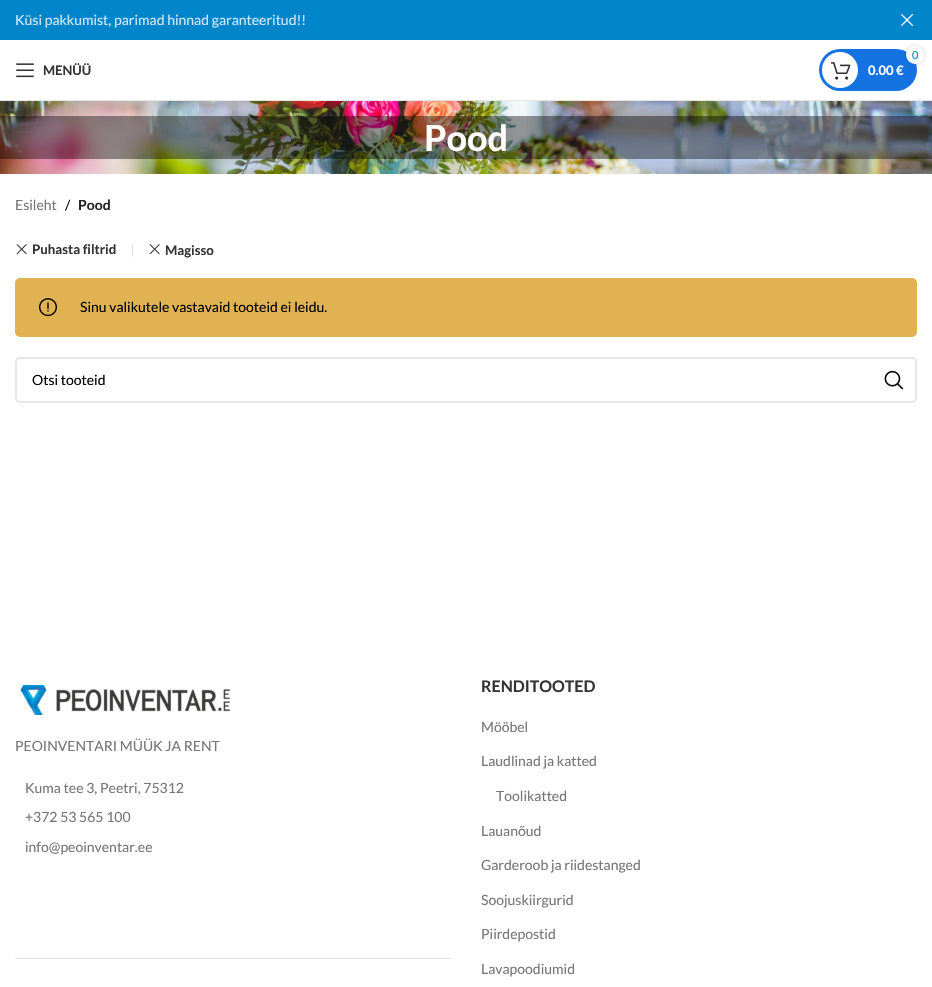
void draw(SkCanvas* c) {
SkPaint p;
p.setAntiAlias(true);
auto F=[&](const char* family, int weight, float size, bool italic = false){SkFontStyle style(weight, SkFontStyle::kNormal_Width,italic ? SkFontStyle::kItalic_Slant : SkFontStyle::kUpright_Slant);SkFont result(fontMgr->matchFamilyStyle(family, style), size);result.setSubpixel(true);return result;};
auto T=[&](const char* s, float x, float y, const SkFont& font){c->drawString(s, x, y, font, p);};
auto R=[&](float x, float y, float w, float h){c->drawRect(SkRect::MakeXYWH(x, y, w, h), p);};
auto Q=[&](float x, float y, float w, float h, float radius){c->drawRoundRect(SkRect::MakeXYWH(x, y, w, h), radius, radius, p);};
auto I=[&](const char* path, float x, float y, float w, float h){auto image = SkImages::DeferredFromEncodedData(SkData::MakeFromFileName(path));c->drawImageRect(image, SkRect::MakeXYWH(x, y, w, h), SkSamplingOptions());};
c->clear(0xffffffff);
p.setColor(0xff0084ca);
R(0,0,932,40);
auto f1 = F("Lato",400,14);
p.setColor(0xffcce6f4);
T("Küsi pakkumist, parimad hinnad garanteeritud!!",15,25,f1);
I("1.png",900,13,14,14);
p.setColor(0xffe6e6e6);
R(0,100,932,1);
I("2.png",16,63,18,15);
auto f2 = F("Lato",700,13);
p.setColor(0xff333333);
T("MENÜÜ",43,75,f2);
p.setColor(0xff1473e0);
Q(819,49,98,42,21);
p.setColor(0xffffffff);
c->drawCircle(840,70,18,p);
p.setColor(0x2b000000);
p.setMaskFilter(SkMaskFilter::MakeBlur(kNormal_SkBlurStyle, 2));
c->drawRoundRect(SkRect::MakeXYWH(906,46,18,18),9,9,p);
p.setMaskFilter(nullptr);
p.setColor(0xffffffff);
c->drawCircle(915,55,9,p);
auto f3 = F("Lato",400,11);
p.setColor(0xff0084ca);
T("0",912,59,f3);
I("3.png",831,62,20,18);
p.setColor(0xffffffff);
T("0.00 €",868,75,f2);
I("4.png",0,101,932,73);
p.setColor(0x66000000);
R(0,116,932,43);
auto f4 = F("Lato",700,36);
p.setColor(0xffffffff);
T("Pood",424,151,f4);
p.setColor(0xff767676);
T("Esileht",15,210,f1);
p.setColor(0xff000000);
T("/",65,210,f1);
auto f5 = F("Lato",700,14);
p.setColor(0xff242424);
T("Pood",78,210,f5);
p.setColor(0xffe4e4e4);
R(132,243,1,14);
I("5.png",16,244,11,11);
auto f6 = F("Lato",700,13.25);
p.setColor(0xff333333);
T("Puhasta filtrid",32,254,f6);
I("5.png",149,244,11,11);
T("Magisso",165,255,f6);
p.setColor(0xffe0b252);
Q(15,278,902,59,5);
I("6.png",39,298,18,19);
p.setColor(0xff000000);
T("Sinu valikutele vastavaid tooteid ei leidu.",80,312,f1);
p.setStroke(true);
p.setStrokeWidth(2);
p.setColor(0xffe6e6e6);
c->drawRoundRect(SkRect::MakeXYWH(16,358,900,44),4,4,p);
p.setStroke(false);
p.setColor(0xff000000);
T("Otsi tooteid",32,385,f1);
I("7.png",884,370,20,20);
I("8.png",20,685,211,30);
p.setColor(0xff767676);
T("PEOINVENTARI MÜÜK JA RENT",15,751,f1);
T("Kuma tee 3, Peetri, 75312",25,793,f1);
T("+372 53 565 100",25,822,f1);
T("info@peoinventar.ee",25,852,f1);
p.setColor(0xffe4e4e4);
R(15,958,436,1);
auto f7 = F("Lato",700,16);
p.setColor(0xff333333);
T("RENDITOOTED",481,692,f7);
p.setColor(0xff767676);
T("Mööbel",481,732,f1);
T("Laudlinad ja katted",481,766,f1);
T("Toolikatted",496,801,f1);
T("Lauanõud",481,836,f1);
T("Garderoob ja riidestanged",481,870,f1);
T("Soojuskiirgurid",481,905,f1);
T("Piirdepostid",481,939,f1);
T("Lavapoodiumid",481,974,f1);
}
